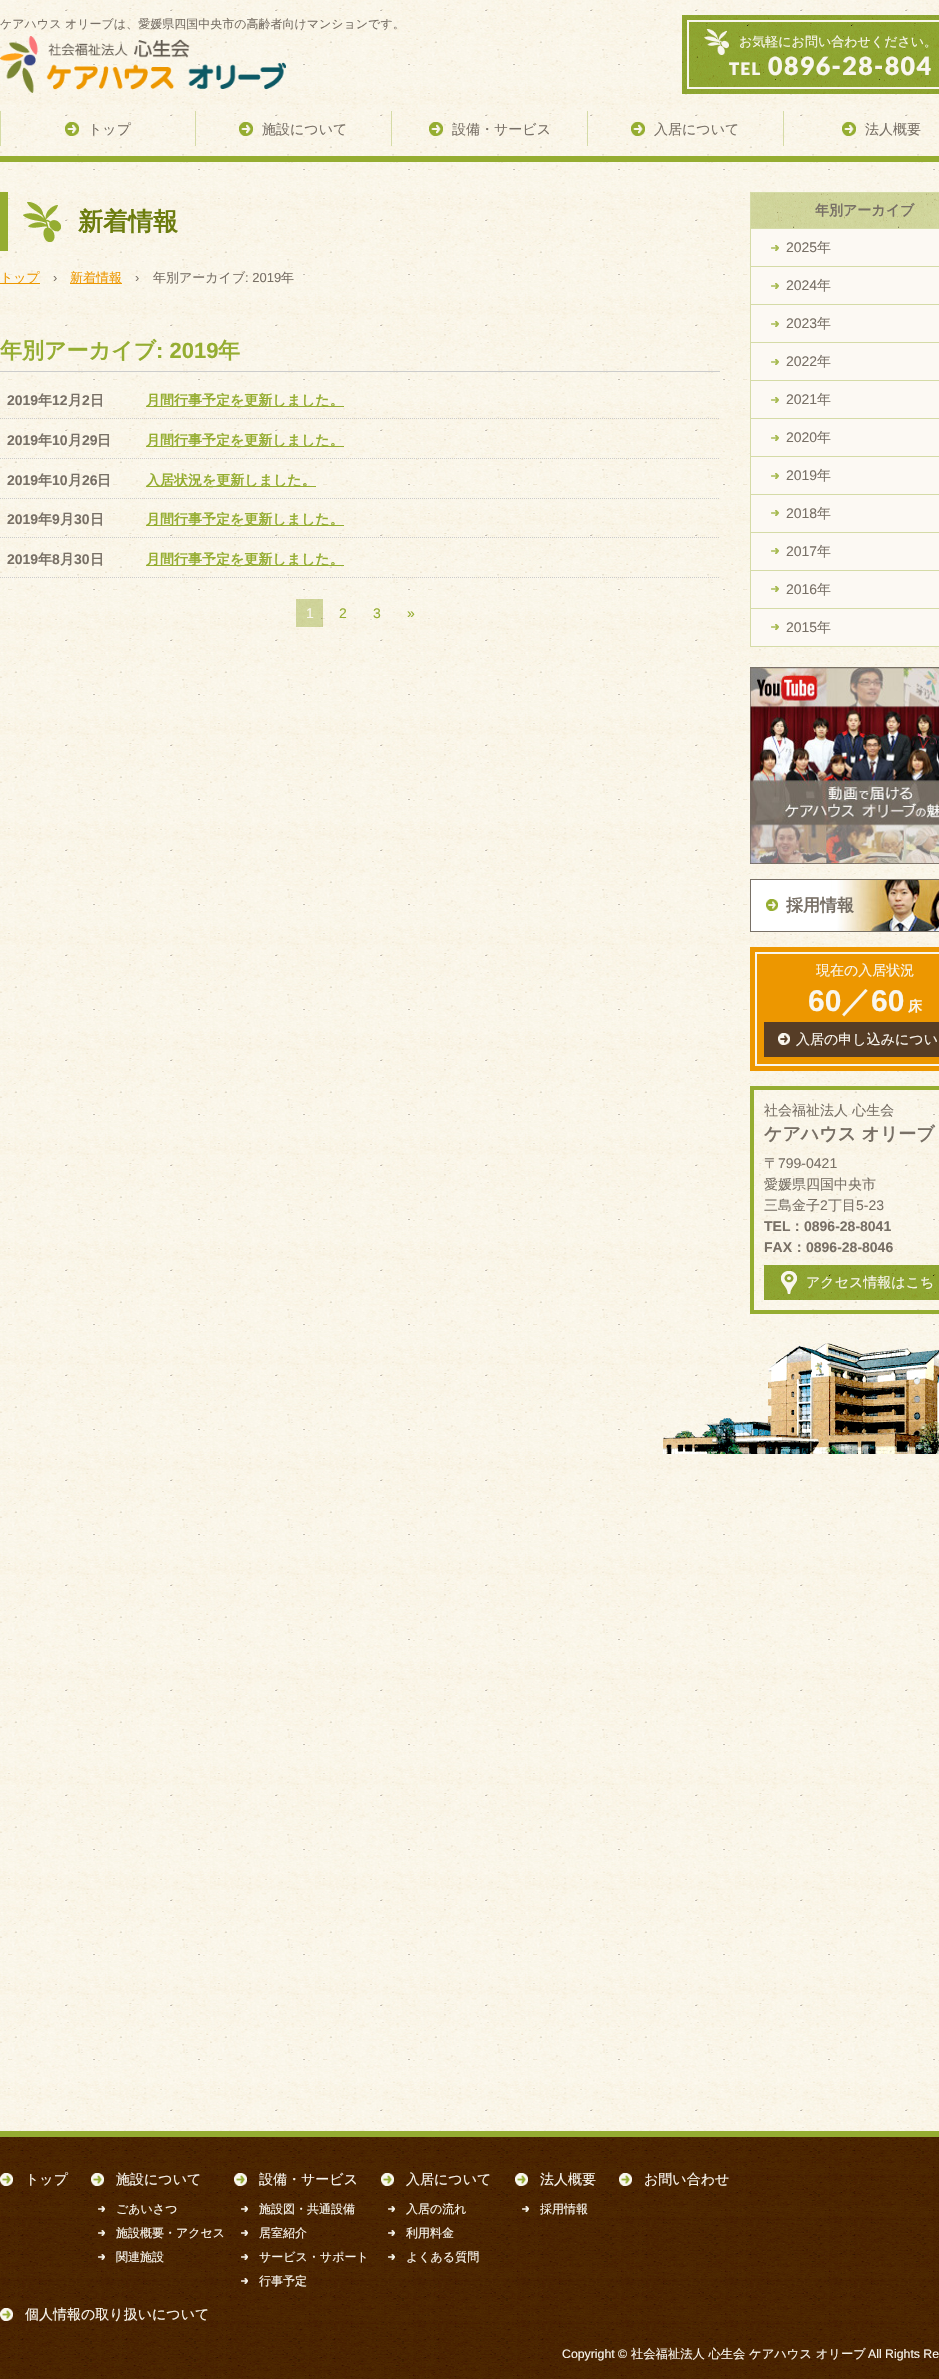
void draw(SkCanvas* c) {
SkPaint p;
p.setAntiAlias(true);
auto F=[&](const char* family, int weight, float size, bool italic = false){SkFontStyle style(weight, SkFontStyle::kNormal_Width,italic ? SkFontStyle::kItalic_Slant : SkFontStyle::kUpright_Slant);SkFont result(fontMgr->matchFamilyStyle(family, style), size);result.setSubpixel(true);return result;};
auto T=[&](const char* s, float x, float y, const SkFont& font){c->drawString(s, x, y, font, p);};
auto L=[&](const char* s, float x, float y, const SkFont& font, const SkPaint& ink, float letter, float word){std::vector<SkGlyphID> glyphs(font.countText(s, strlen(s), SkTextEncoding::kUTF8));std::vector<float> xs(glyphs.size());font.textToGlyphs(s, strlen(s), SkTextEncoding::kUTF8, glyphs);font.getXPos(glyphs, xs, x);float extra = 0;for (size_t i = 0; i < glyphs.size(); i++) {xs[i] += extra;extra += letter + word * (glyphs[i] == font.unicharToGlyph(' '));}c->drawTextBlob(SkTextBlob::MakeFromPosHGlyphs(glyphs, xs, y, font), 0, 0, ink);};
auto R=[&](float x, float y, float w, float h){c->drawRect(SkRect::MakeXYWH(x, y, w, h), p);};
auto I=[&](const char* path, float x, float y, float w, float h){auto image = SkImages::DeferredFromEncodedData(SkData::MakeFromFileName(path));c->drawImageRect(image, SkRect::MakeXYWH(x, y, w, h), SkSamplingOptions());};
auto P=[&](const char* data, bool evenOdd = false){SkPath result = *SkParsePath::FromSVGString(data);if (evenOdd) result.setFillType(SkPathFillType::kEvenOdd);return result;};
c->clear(0xffffffff);
I("1.png",0,0,939,2131);
auto f1 = F("WenQuanYi Zen Hei",500,12);
p.setColor(0xff787066);
T("ケアハウス オリーブは、愛媛県四国中央市の高齢者向けマンションです。",0,28,f1);
I("2.png",0,36,286,57);
I("3.png",682,15,257,79);
I("4.png",704,29,25,26);
p.setStroke(true);
p.setStrokeWidth(2);
p.setColor(0xfff9f6ee);
c->drawRect(SkRect::MakeXYWH(688,21,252,67),p);
auto f2 = F("WenQuanYi Zen Hei",500,13);
p.setStroke(false);
T("お気軽にお問い合わせください。",739,46,f2);
auto f3 = F("Lato",900,17);
L("TEL",729,75,f3,p,1.4,0);
auto f4 = F("Lato",900,25);
L("0896-28-804",768,75,f4,p,1.4,0);
p.setColor(0xff95ad31);
R(0,156,939,6);
p.setColor(0xffd5dba7);
R(0,111,1,35);
R(195,111,1,35);
I("5.png",65,122,14,14);
auto f5 = F("WenQuanYi Zen Hei",500,14);
p.setColor(0xff787066);
T("トップ",88,134,f5);
p.setColor(0xffd5dba7);
R(391,111,1,35);
I("6.png",239,122,14,14);
p.setColor(0xff787066);
T("施設について",262,134,f5);
p.setColor(0xffd5dba7);
R(587,111,1,35);
I("7.png",429,122,14,14);
p.setColor(0xff787066);
T("設備・サービス",452,134,f5);
p.setColor(0xffd5dba7);
R(783,111,1,35);
I("8.png",631,122,14,14);
p.setColor(0xff787066);
T("入居について",654,134,f5);
I("9.png",842,122,14,14);
T("法人概要",865,134,f5);
I("10.png",663,1343,276,111);
I("11.png",23,202,38,40);
p.setColor(0xff95ad31);
R(0,192,8,59);
auto f6 = F("WenQuanYi Zen Hei",700,25);
p.setColor(0xff6c7c0e);
T("新着情報",78,230,f6);
p.setColor(0xffed9700);
R(0,283,40,1);
T("トップ",0,282,f2);
auto f7 = F("Liberation Sans",400,13);
p.setColor(0xff787066);
T("›",53,282,f7);
p.setColor(0xffed9700);
R(70,283,52,1);
T("新着情報",70,282,f2);
p.setColor(0xff787066);
T("›",135,282,f7);
T("年別アーカイブ",153,282,f2);
T(": 2019",245,282,f7);
T("年",281,282,f2);
p.setColor(0xffcccccc);
R(0,371,720,1);
auto f8 = F("WenQuanYi Zen Hei",700,22);
p.setColor(0xff95ad31);
T("年別アーカイブ",0,358,f8);
auto f9 = F("Liberation Sans",700,22);
T(": 2019",156,358,f9);
T("年",218,358,f8);
p.setStroke(true);
p.setStrokeWidth(1);
p.setColor(0xffcccccc);
p.setPathEffect(SkDashPathEffect::Make({{1,1}}, 0));
c->drawPath(P("M0 418.5h720"),p);
p.setPathEffect(nullptr);
auto f10 = F("Liberation Sans",700,14);
p.setStroke(false);
p.setColor(0xff787066);
T("2019",7,405,f10);
auto f11 = F("WenQuanYi Zen Hei",700,14);
T("年",38,405,f11);
T("12",52,405,f10);
T("月",68,405,f11);
T("2",82,405,f10);
T("日",90,405,f11);
p.setColor(0xff95ad31);
R(146,406,198,1);
T("月間行事予定を更新しました。",146,405,f11);
p.setStroke(true);
p.setColor(0xffcccccc);
p.setPathEffect(SkDashPathEffect::Make({{1,1}}, 0));
c->drawPath(P("M0 458.5h720"),p);
p.setPathEffect(nullptr);
p.setStroke(false);
p.setColor(0xff787066);
T("2019",7,445,f10);
T("年",38,445,f11);
T("10",52,445,f10);
T("月",68,445,f11);
T("29",82,445,f10);
T("日",97,445,f11);
p.setColor(0xff95ad31);
R(146,446,198,1);
T("月間行事予定を更新しました。",146,445,f11);
p.setStroke(true);
p.setColor(0xffcccccc);
p.setPathEffect(SkDashPathEffect::Make({{1,1}}, 0));
c->drawPath(P("M0 498.5h720"),p);
p.setPathEffect(nullptr);
p.setStroke(false);
p.setColor(0xff787066);
T("2019",7,485,f10);
T("年",38,485,f11);
T("10",52,485,f10);
T("月",68,485,f11);
T("26",82,485,f10);
T("日",97,485,f11);
p.setColor(0xff95ad31);
R(146,486,170,1);
T("入居状況を更新しました。",146,485,f11);
p.setStroke(true);
p.setColor(0xffcccccc);
p.setPathEffect(SkDashPathEffect::Make({{1,1}}, 0));
c->drawPath(P("M0 537.5h720"),p);
p.setPathEffect(nullptr);
p.setStroke(false);
p.setColor(0xff787066);
T("2019",7,524,f10);
T("年",38,524,f11);
T("9",52,524,f10);
T("月",60,524,f11);
T("30",74,524,f10);
T("日",90,524,f11);
p.setColor(0xff95ad31);
R(146,525,198,1);
T("月間行事予定を更新しました。",146,524,f11);
p.setStroke(true);
p.setColor(0xffcccccc);
p.setPathEffect(SkDashPathEffect::Make({{1,1}}, 0));
c->drawPath(P("M0 577.5h720"),p);
p.setPathEffect(nullptr);
p.setStroke(false);
p.setColor(0xff787066);
T("2019",7,564,f10);
T("年",38,564,f11);
T("8",52,564,f10);
T("月",60,564,f11);
T("30",74,564,f10);
T("日",90,564,f11);
p.setColor(0xff95ad31);
R(146,565,198,1);
T("月間行事予定を更新しました。",146,564,f11);
I("12.png",296,599,27,28);
auto f12 = F("Liberation Sans",400,14);
p.setColor(0xfff9f6ee);
T("1",306,618,f12);
p.setColor(0xff95ad31);
T("2",339,618,f12);
T("3",373,618,f12);
T("»",407,618,f12);
p.setColor(0xfffcf9f3);
R(751,229,188,417);
p.setStroke(true);
p.setColor(0xffd5dba7);
c->drawRect(SkRect::MakeXYWH(750.5,192.5,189,454),p);
I("13.png",751,193,188,35);
p.setStroke(false);
p.setColor(0xff787066);
T("年別アーカイブ",815,215,f11);
p.setColor(0xffd5dba7);
R(751,228,188,1);
I("14.png",771,245,8,6);
p.setColor(0xff787066);
T("2025",786,252,f12);
T("年",817,252,f5);
p.setColor(0xffd5dba7);
R(751,266,188,1);
I("14.png",771,283,8,6);
p.setColor(0xff787066);
T("2024",786,290,f12);
T("年",817,290,f5);
p.setColor(0xffd5dba7);
R(751,304,188,1);
I("14.png",771,321,8,6);
p.setColor(0xff787066);
T("2023",786,328,f12);
T("年",817,328,f5);
p.setColor(0xffd5dba7);
R(751,342,188,1);
I("14.png",771,359,8,6);
p.setColor(0xff787066);
T("2022",786,366,f12);
T("年",817,366,f5);
p.setColor(0xffd5dba7);
R(751,380,188,1);
I("14.png",771,397,8,6);
p.setColor(0xff787066);
T("2021",786,404,f12);
T("年",817,404,f5);
p.setColor(0xffd5dba7);
R(751,418,188,1);
I("14.png",771,435,8,6);
p.setColor(0xff787066);
T("2020",786,442,f12);
T("年",817,442,f5);
p.setColor(0xffd5dba7);
R(751,456,188,1);
I("14.png",771,473,8,6);
p.setColor(0xff787066);
T("2019",786,480,f12);
T("年",817,480,f5);
p.setColor(0xffd5dba7);
R(751,494,188,1);
I("14.png",771,510,8,6);
p.setColor(0xff787066);
T("2018",786,518,f12);
T("年",817,518,f5);
p.setColor(0xffd5dba7);
R(751,532,188,1);
I("14.png",771,548,8,6);
p.setColor(0xff787066);
T("2017",786,556,f12);
T("年",817,556,f5);
p.setColor(0xffd5dba7);
R(751,570,188,1);
I("14.png",771,586,8,6);
p.setColor(0xff787066);
T("2016",786,594,f12);
T("年",817,594,f5);
p.setColor(0xffd5dba7);
R(751,608,188,1);
I("14.png",771,624,8,6);
p.setColor(0xff787066);
T("2015",786,632,f12);
T("年",817,632,f5);
I("15.png",750,667,189,197);
I("16.png",751,880,188,51);
p.setStroke(true);
c->drawRect(SkRect::MakeXYWH(750.5,879.5,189,52),p);
I("17.png",766,899,12,12);
auto f13 = F("WenQuanYi Zen Hei",700,17);
p.setStroke(false);
T("採用情報",786,911,f13);
p.setColor(0xffed9700);
R(750,947,189,124);
p.setStroke(true);
p.setStrokeWidth(2);
p.setColor(0xfff9f6ee);
c->drawRect(SkRect::MakeXYWH(756,953,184,112),p);
p.setStroke(false);
T("現在の入居状況",816,975,f5);
auto f14 = F("Liberation Sans",700,30);
T("60",808,1011,f14);
auto f15 = F("WenQuanYi Zen Hei",700,30);
T("／",841,1011,f15);
T("60",871,1011,f14);
T("床",908,1011,f11);
p.setColor(0xff563d26);
R(764,1022,175,35);
I("18.png",778,1033,12,12);
p.setColor(0xfff9f6ee);
T("入居の申し込みについ",796,1044,f5);
p.setStroke(true);
p.setStrokeWidth(4);
p.setColor(0xff95ad31);
c->drawRect(SkRect::MakeXYWH(752,1088,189,224),p);
p.setStroke(false);
p.setColor(0xff787066);
T("社会福祉法人 心生会",764,1115,f5);
auto f16 = F("WenQuanYi Zen Hei",700,18);
T("ケアハウス オリーブ",764,1140,f16);
T("〒",764,1168,f5);
T("799-0421",778,1168,f12);
T("愛媛県四国中央市",764,1189,f5);
T("三島金子",764,1210,f5);
T("2",820,1210,f12);
T("丁目",828,1210,f5);
T("5-23",856,1210,f12);
T("TEL",764,1231,f10);
T("：",790,1231,f11);
T("0896-28-8041",804,1231,f10);
T("FAX",764,1252,f10);
T("：",792,1252,f11);
T("0896-28-8046",806,1252,f10);
I("19.png",764,1265,175,35);
I("20.png",781,1271,16,23);
p.setColor(0xfff9f6ee);
T("アクセス情報はこち",806,1287,f5);
I("21.png",0,2137,939,242);
p.setColor(0xff95ad31);
R(0,2131,939,6);
I("22.png",0,2173,13,13);
p.setColor(0xfff9f6ee);
T("トップ",25,2184,f5);
I("23.png",91,2173,13,13);
T("施設について",116,2184,f5);
I("24.png",98,2206,7,6);
T("ごあいさつ",116,2213,f1);
I("25.png",98,2230,7,6);
T("施設概要・アクセス",116,2237,f1);
I("26.png",98,2254,7,6);
T("関連施設",116,2261,f1);
I("27.png",234,2173,13,13);
T("設備・サービス",259,2184,f5);
I("28.png",241,2206,7,6);
T("施設図・共通設備",259,2213,f1);
I("29.png",241,2230,7,6);
T("居室紹介",259,2237,f1);
I("30.png",241,2254,7,6);
T("サービス・サポート",259,2261,f1);
I("31.png",241,2278,7,6);
T("行事予定",259,2285,f1);
I("32.png",381,2173,13,13);
T("入居について",406,2184,f5);
I("33.png",388,2206,7,6);
T("入居の流れ",406,2213,f1);
I("34.png",388,2230,7,6);
T("利用料金",406,2237,f1);
I("35.png",388,2254,7,6);
T("よくある質問",406,2261,f1);
I("36.png",515,2173,13,13);
T("法人概要",540,2184,f5);
I("37.png",522,2206,7,6);
T("採用情報",540,2213,f1);
I("38.png",619,2173,13,13);
T("お問い合わせ",644,2184,f5);
I("39.png",0,2308,13,13);
T("個人情報の取り扱いについて",25,2319,f5);
auto f17 = F("Liberation Sans",400,12.3);
T("Copyright ©",562,2358,f17);
auto f18 = F("WenQuanYi Zen Hei",500,12.3);
T("社会福祉法人 心生会 ケアハウス オリーブ",631,2358,f18);
T("All Rights Re",868,2358,f17);
}
